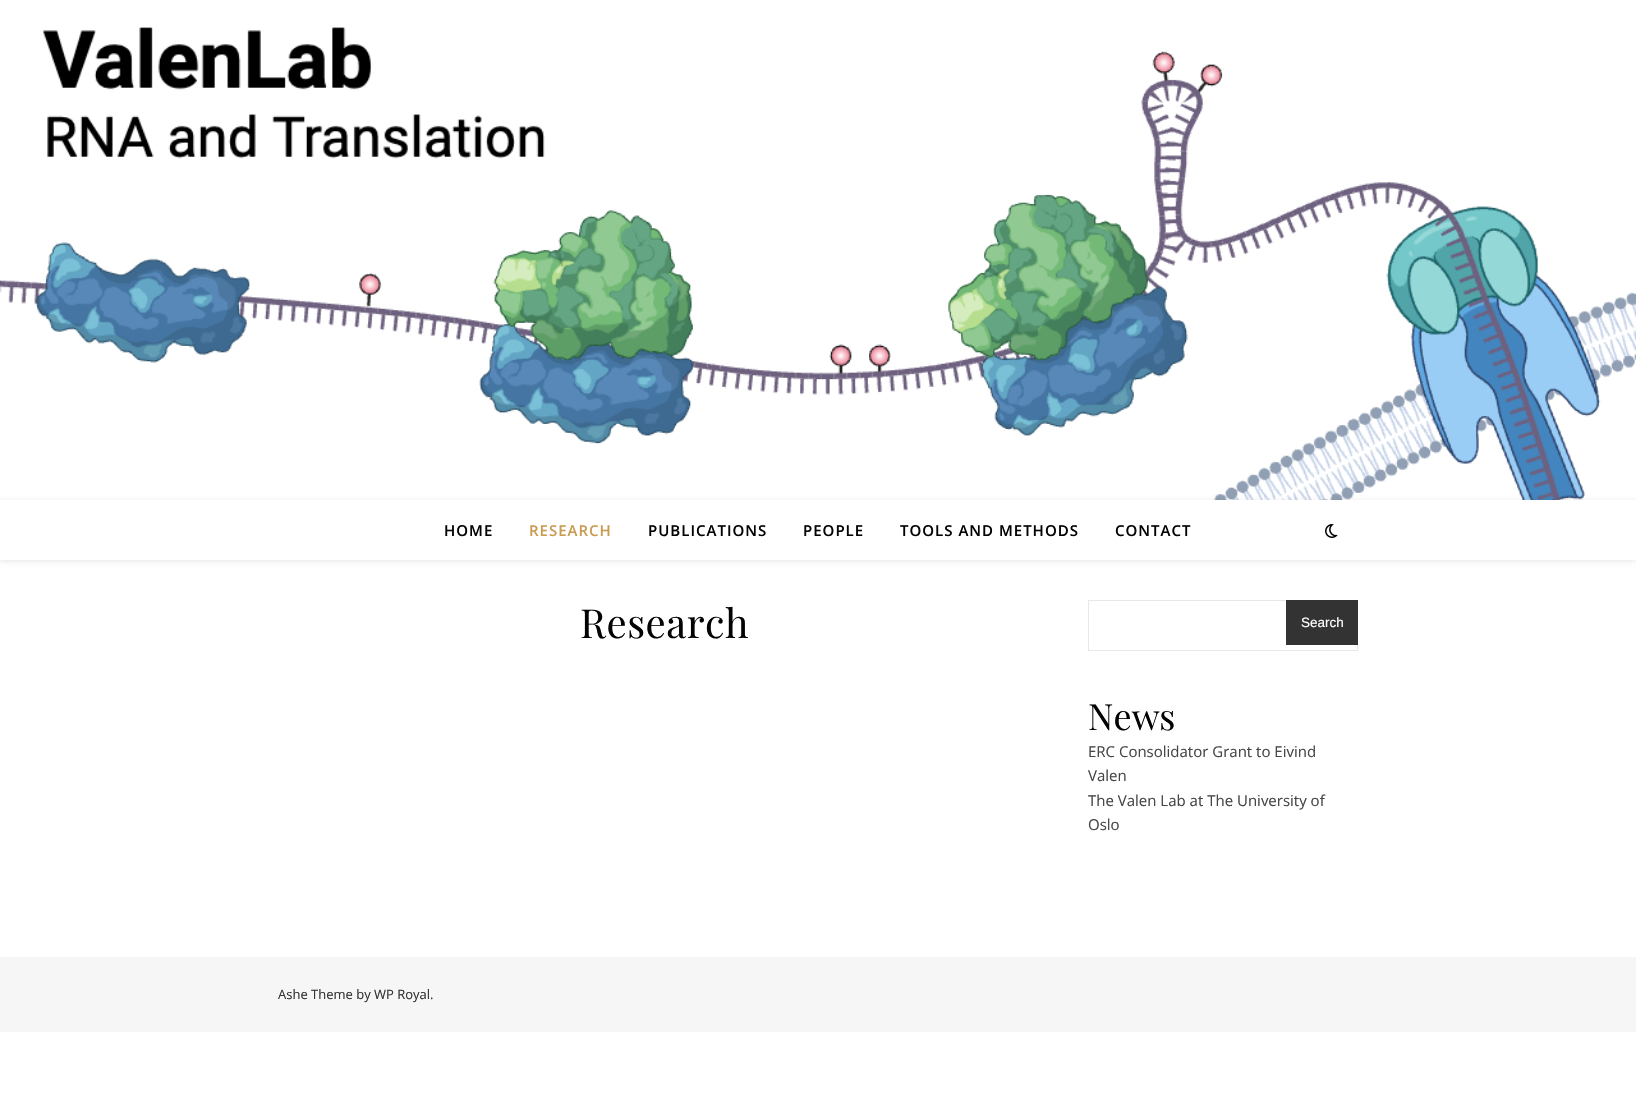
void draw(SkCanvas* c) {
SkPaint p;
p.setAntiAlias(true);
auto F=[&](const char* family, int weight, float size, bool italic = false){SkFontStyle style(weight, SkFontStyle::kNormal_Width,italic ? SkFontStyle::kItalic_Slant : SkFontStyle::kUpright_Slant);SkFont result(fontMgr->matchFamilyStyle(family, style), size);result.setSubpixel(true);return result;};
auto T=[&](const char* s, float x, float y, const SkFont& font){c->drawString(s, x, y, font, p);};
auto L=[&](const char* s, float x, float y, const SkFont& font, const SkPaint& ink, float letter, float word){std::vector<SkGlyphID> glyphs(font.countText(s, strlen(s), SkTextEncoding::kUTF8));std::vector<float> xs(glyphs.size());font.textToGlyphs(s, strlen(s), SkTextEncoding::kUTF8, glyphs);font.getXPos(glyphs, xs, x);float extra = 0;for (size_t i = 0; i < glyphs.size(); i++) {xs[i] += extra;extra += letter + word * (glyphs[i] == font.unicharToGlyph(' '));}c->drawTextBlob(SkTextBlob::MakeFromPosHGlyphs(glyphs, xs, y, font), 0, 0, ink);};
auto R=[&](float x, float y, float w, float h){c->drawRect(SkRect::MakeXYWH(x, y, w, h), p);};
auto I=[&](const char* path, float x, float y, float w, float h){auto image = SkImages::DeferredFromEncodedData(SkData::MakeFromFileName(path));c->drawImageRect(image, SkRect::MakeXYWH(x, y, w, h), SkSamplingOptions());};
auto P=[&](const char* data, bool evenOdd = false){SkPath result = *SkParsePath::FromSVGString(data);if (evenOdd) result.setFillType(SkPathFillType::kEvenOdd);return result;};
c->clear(0xffffffff);
I("1.png",0,27,1636,473);
c->save();
c->clipPath(P("M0 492h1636v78h-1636zm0 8h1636v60h-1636z",true),true);
p.setColor(0x1a000000);
p.setMaskFilter(SkMaskFilter::MakeBlur(kNormal_SkBlurStyle, 2.5));
c->drawRect(SkRect::MakeXYWH(0,501,1636,60),p);
p.setMaskFilter(nullptr);
c->restore();
auto f1 = F("Open Sans",600,15);
p.setColor(0xff030303);
L("HOME",444,536,f1,p,1,0);
p.setColor(0xffca9b52);
L("RESEARCH",529,536,f1,p,1,0);
p.setColor(0xff030303);
L("PUBLICATIONS",648,536,f1,p,1,0);
L("PEOPLE",803,536,f1,p,1,0);
L("TOOLS AND METHODS",900,536,f1,p,1,0);
L("CONTACT",1115,536,f1,p,1,0);
I("2.png",1325,524,13,14);
auto f2 = F("Playfair Display",400,40);
L("Research",580,638,f2,p,.5,0);
p.setStroke(true);
p.setStrokeWidth(1);
p.setColor(0xffe8e8e8);
c->drawRect(SkRect::MakeXYWH(1088.5,600.5,269,50),p);
p.setStroke(false);
p.setColor(0xff333333);
R(1286,600,72,45);
auto f3 = F("Liberation Sans",400,13.5);
p.setColor(0xffffffff);
T("Search",1301,627,f3);
auto f4 = F("Playfair Display",400,36);
p.setColor(0xff030303);
T("News",1088,730,f4);
auto f5 = F("Open Sans",400,15);
p.setColor(0xff464646);
T("ERC Consolidator Grant to Eivind",1088,757,f5);
T("Valen",1088,781,f5);
T("The Valen Lab at The University of",1088,806,f5);
T("Oslo",1088,830,f5);
p.setColor(0xfff6f6f6);
R(0,957,1636,75);
auto f6 = F("Open Sans",400,13);
p.setColor(0xff333333);
T("Ashe Theme by WP Royal.",278,999,f6);
}
